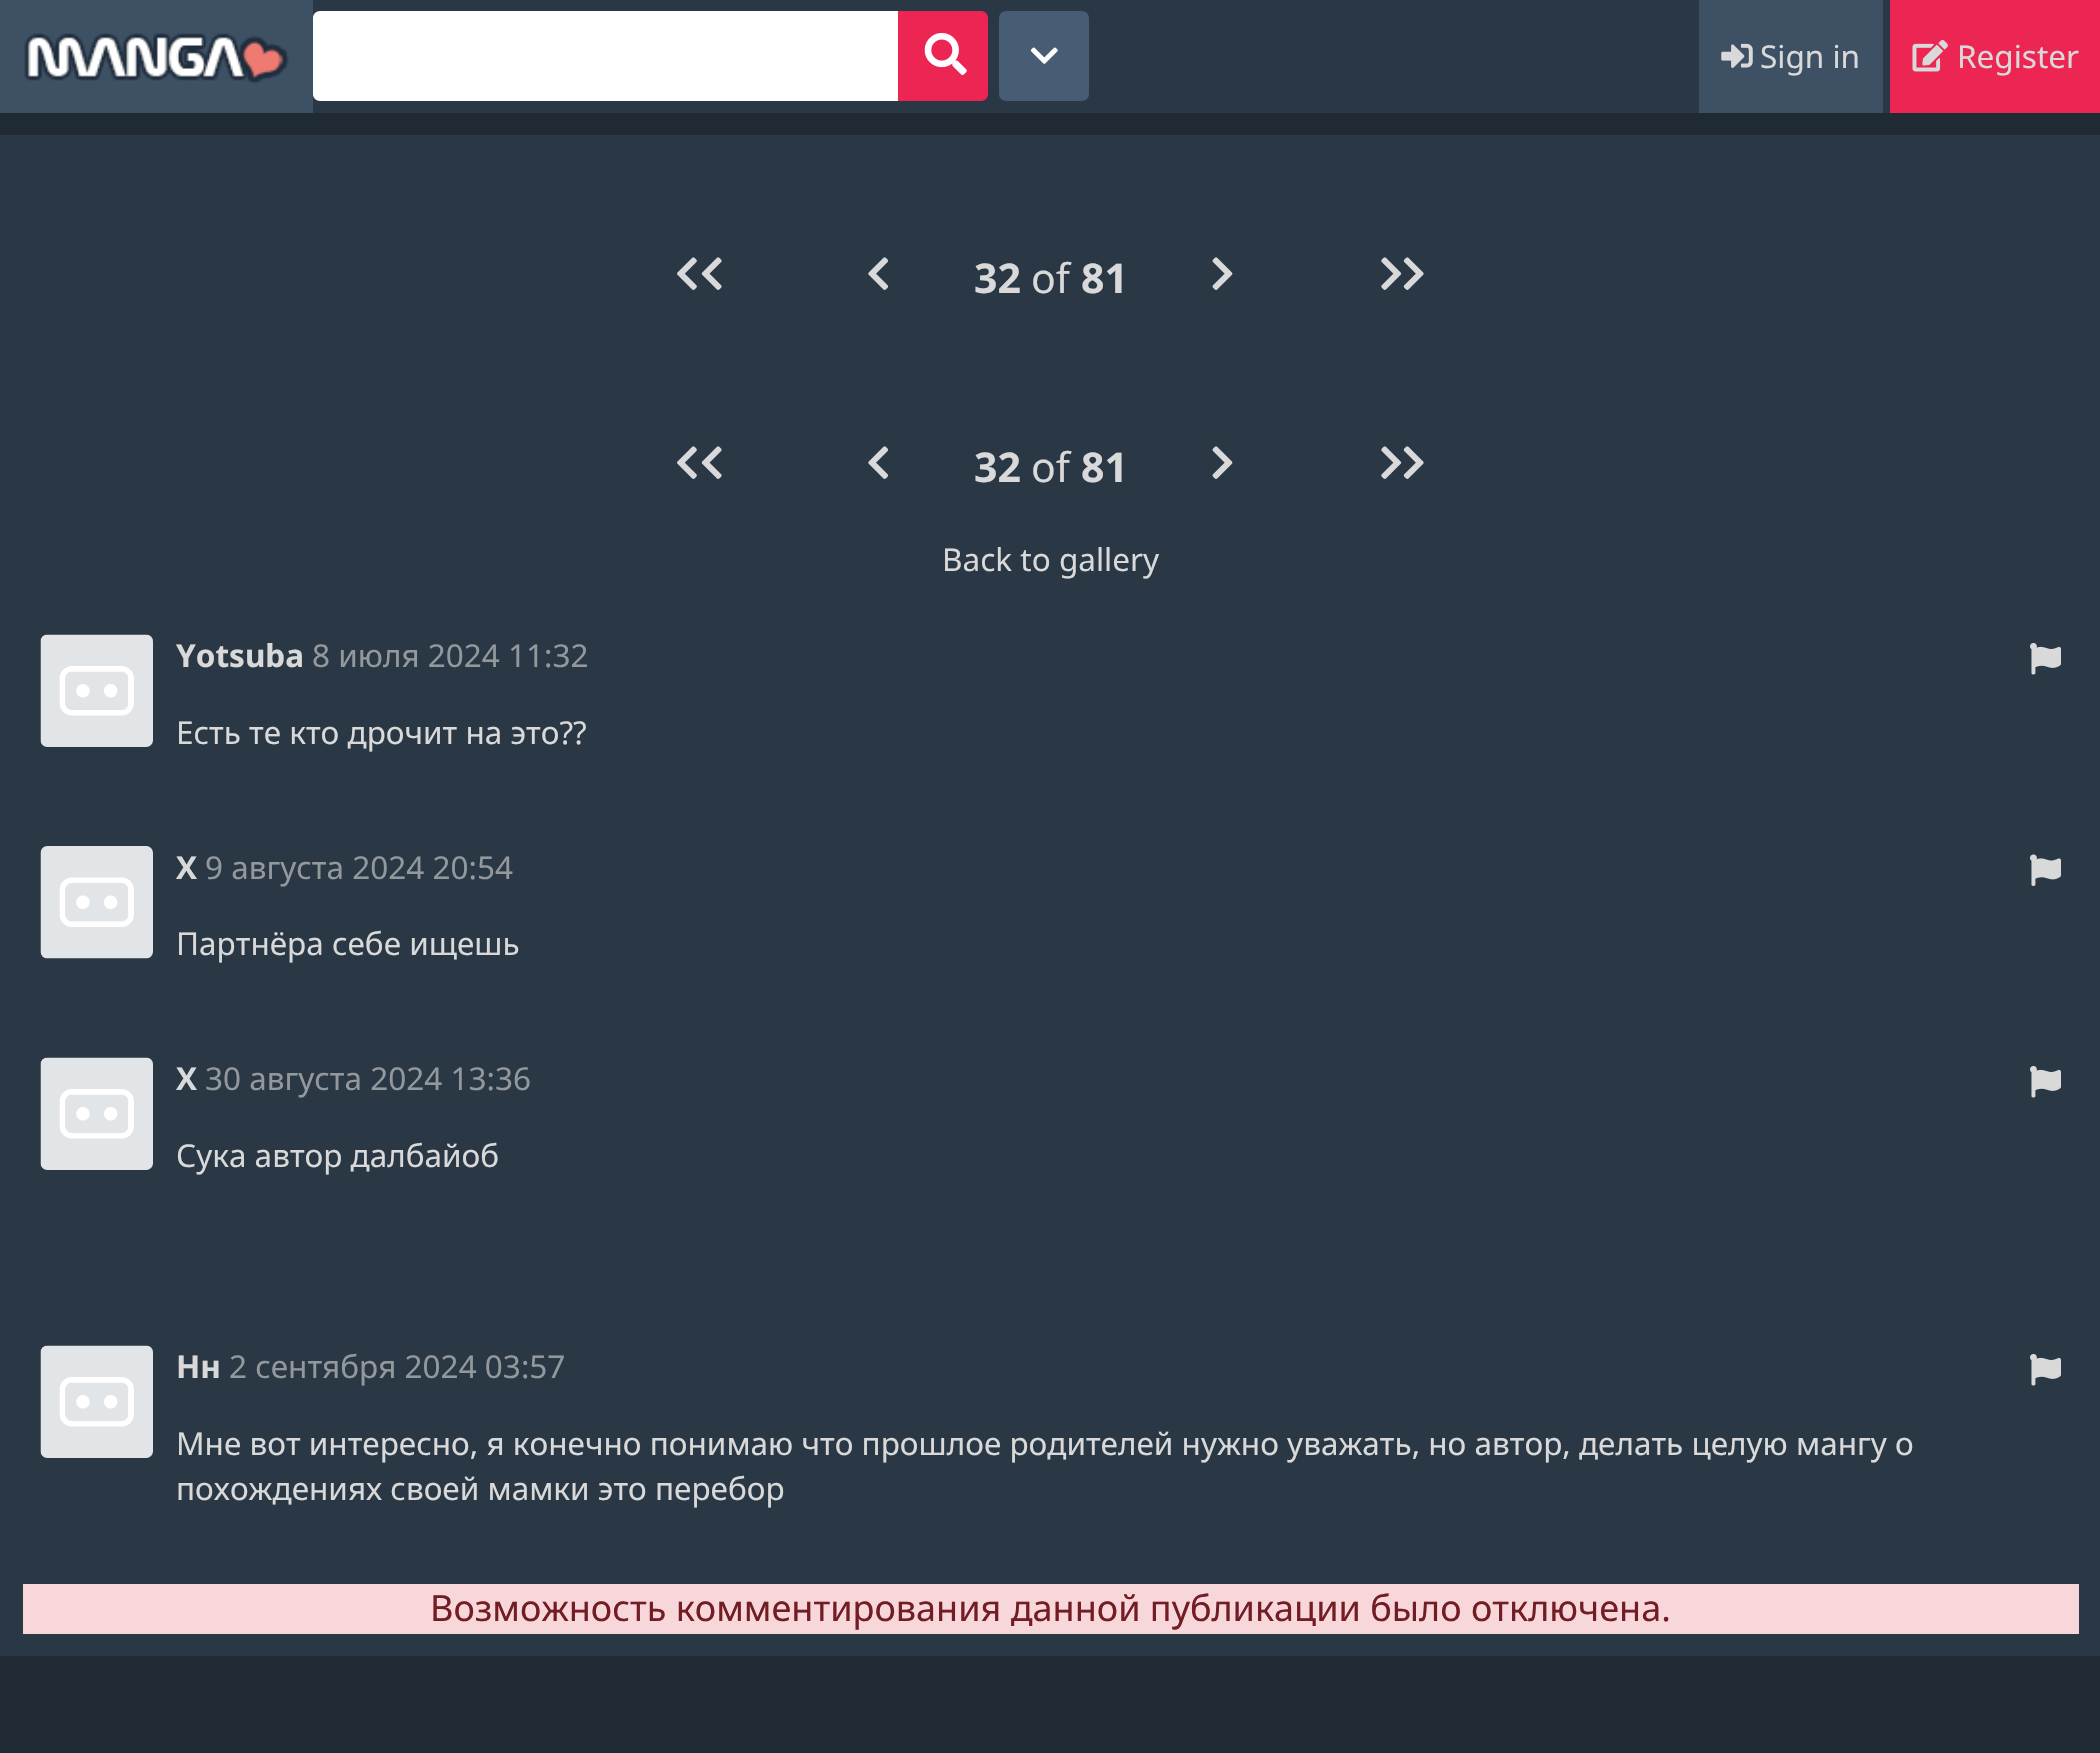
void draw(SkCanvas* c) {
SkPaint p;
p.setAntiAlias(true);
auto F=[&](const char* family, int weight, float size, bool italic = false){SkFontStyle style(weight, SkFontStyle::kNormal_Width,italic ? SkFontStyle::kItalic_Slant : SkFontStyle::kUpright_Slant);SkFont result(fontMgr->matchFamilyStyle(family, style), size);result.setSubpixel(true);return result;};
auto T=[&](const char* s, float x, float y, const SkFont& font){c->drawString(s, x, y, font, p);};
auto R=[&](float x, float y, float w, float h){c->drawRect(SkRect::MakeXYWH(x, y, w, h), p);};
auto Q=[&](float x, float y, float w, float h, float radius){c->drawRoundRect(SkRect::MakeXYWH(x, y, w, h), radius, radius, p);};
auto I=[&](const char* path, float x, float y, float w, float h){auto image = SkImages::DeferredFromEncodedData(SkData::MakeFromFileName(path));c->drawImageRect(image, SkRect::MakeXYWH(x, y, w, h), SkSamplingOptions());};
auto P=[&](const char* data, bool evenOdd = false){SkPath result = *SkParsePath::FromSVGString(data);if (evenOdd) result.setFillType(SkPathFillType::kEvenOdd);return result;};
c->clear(0xff202a34);
p.setColor(0xff2a3744);
R(313,0,1577,113);
p.setColor(0xff3d5064);
R(0,0,313,113);
I("1.png",24,33,265,51);
p.setColor(0xffffffff);
c->drawPath(P("M320 11h578v90h-578c-4 0-7-3-7-7v-76c0-4 3-7 7-7z"),p);
p.setColor(0xffed2553);
c->drawPath(P("M898 11h83c4 0 7 3 7 7v76c0 4-3 7-7 7h-83z"),p);
I("2.png",924,33,43,42);
p.setColor(0xff475d73);
Q(999,11,90,90,7);
I("3.png",1030,47,28,17);
p.setColor(0xff3d5064);
R(1699,0,184,113);
I("4.png",1721,43,32,25);
auto f1 = F("Noto Sans",400,31.5);
p.setColor(0xffd9d9d9);
T("Sign in",1760,68,f1);
p.setColor(0xffed2553);
R(1890,0,210,113);
I("5.png",1912,40,36,32);
p.setColor(0xffd9d9d9);
T("Register",1957,68,f1);
p.setColor(0xff2a3744);
R(0,135,2100,1521);
I("6.png",677,257,20,33);
I("7.png",701,257,21,33);
I("8.png",868,257,21,33);
auto f2 = F("Noto Sans",700,41);
p.setColor(0xffd9d9d9);
T("32",974,293,f2);
auto f3 = F("Noto Sans",400,41);
T("of",1031,293,f3);
T("81",1081,293,f2);
I("9.png",1212,257,21,33);
I("10.png",1381,257,21,33);
I("11.png",1403,257,21,33);
I("6.png",677,446,20,33);
I("7.png",701,446,21,33);
I("8.png",868,446,21,33);
T("32",974,482,f2);
T("of",1031,482,f3);
T("81",1081,482,f2);
I("9.png",1212,446,21,33);
I("10.png",1381,446,21,33);
I("11.png",1403,446,21,33);
T("Back to gallery",942,571,f1);
I("12.png",40,634,113,113);
auto f4 = F("Noto Sans",700,31.5);
T("Yotsuba",176,667,f4);
p.setColor(0xff93989d);
T("8 июля 2024 11:32",312,667,f1);
I("13.png",2030,642,31,33);
p.setColor(0xffd9d9d9);
T("Есть те кто дрочит на это?\077",176,744,f1);
I("14.png",40,846,113,113);
T("Х",176,879,f4);
p.setColor(0xff93989d);
T("9 августа 2024 20:54",205,879,f1);
I("15.png",2030,854,31,32);
p.setColor(0xffd9d9d9);
T("Партнёра себе ищешь",176,955,f1);
I("12.png",40,1057,113,113);
T("Х",176,1090,f4);
p.setColor(0xff93989d);
T("30 августа 2024 13:36",205,1090,f1);
I("13.png",2030,1065,31,33);
p.setColor(0xffd9d9d9);
T("Сука автор далбайоб",176,1167,f1);
I("12.png",40,1345,113,113);
T("Нн",176,1378,f4);
p.setColor(0xff93989d);
T("2 сентября 2024 03:57",229,1378,f1);
I("13.png",2030,1353,31,33);
p.setColor(0xffd9d9d9);
T("Мне вот интересно, я конечно понимаю что прошлое родителей нужно уважать, но автор, делать целую мангу о",176,1455,f1);
T("похождениях своей мамки это перебор",176,1500,f1);
p.setColor(0xfff8d7da);
R(23,1584,2056,50);
auto f5 = F("Noto Sans",400,36);
p.setColor(0xff721c24);
T("Возможность комментирования данной публикации было отключена.",430,1621,f5);
}
